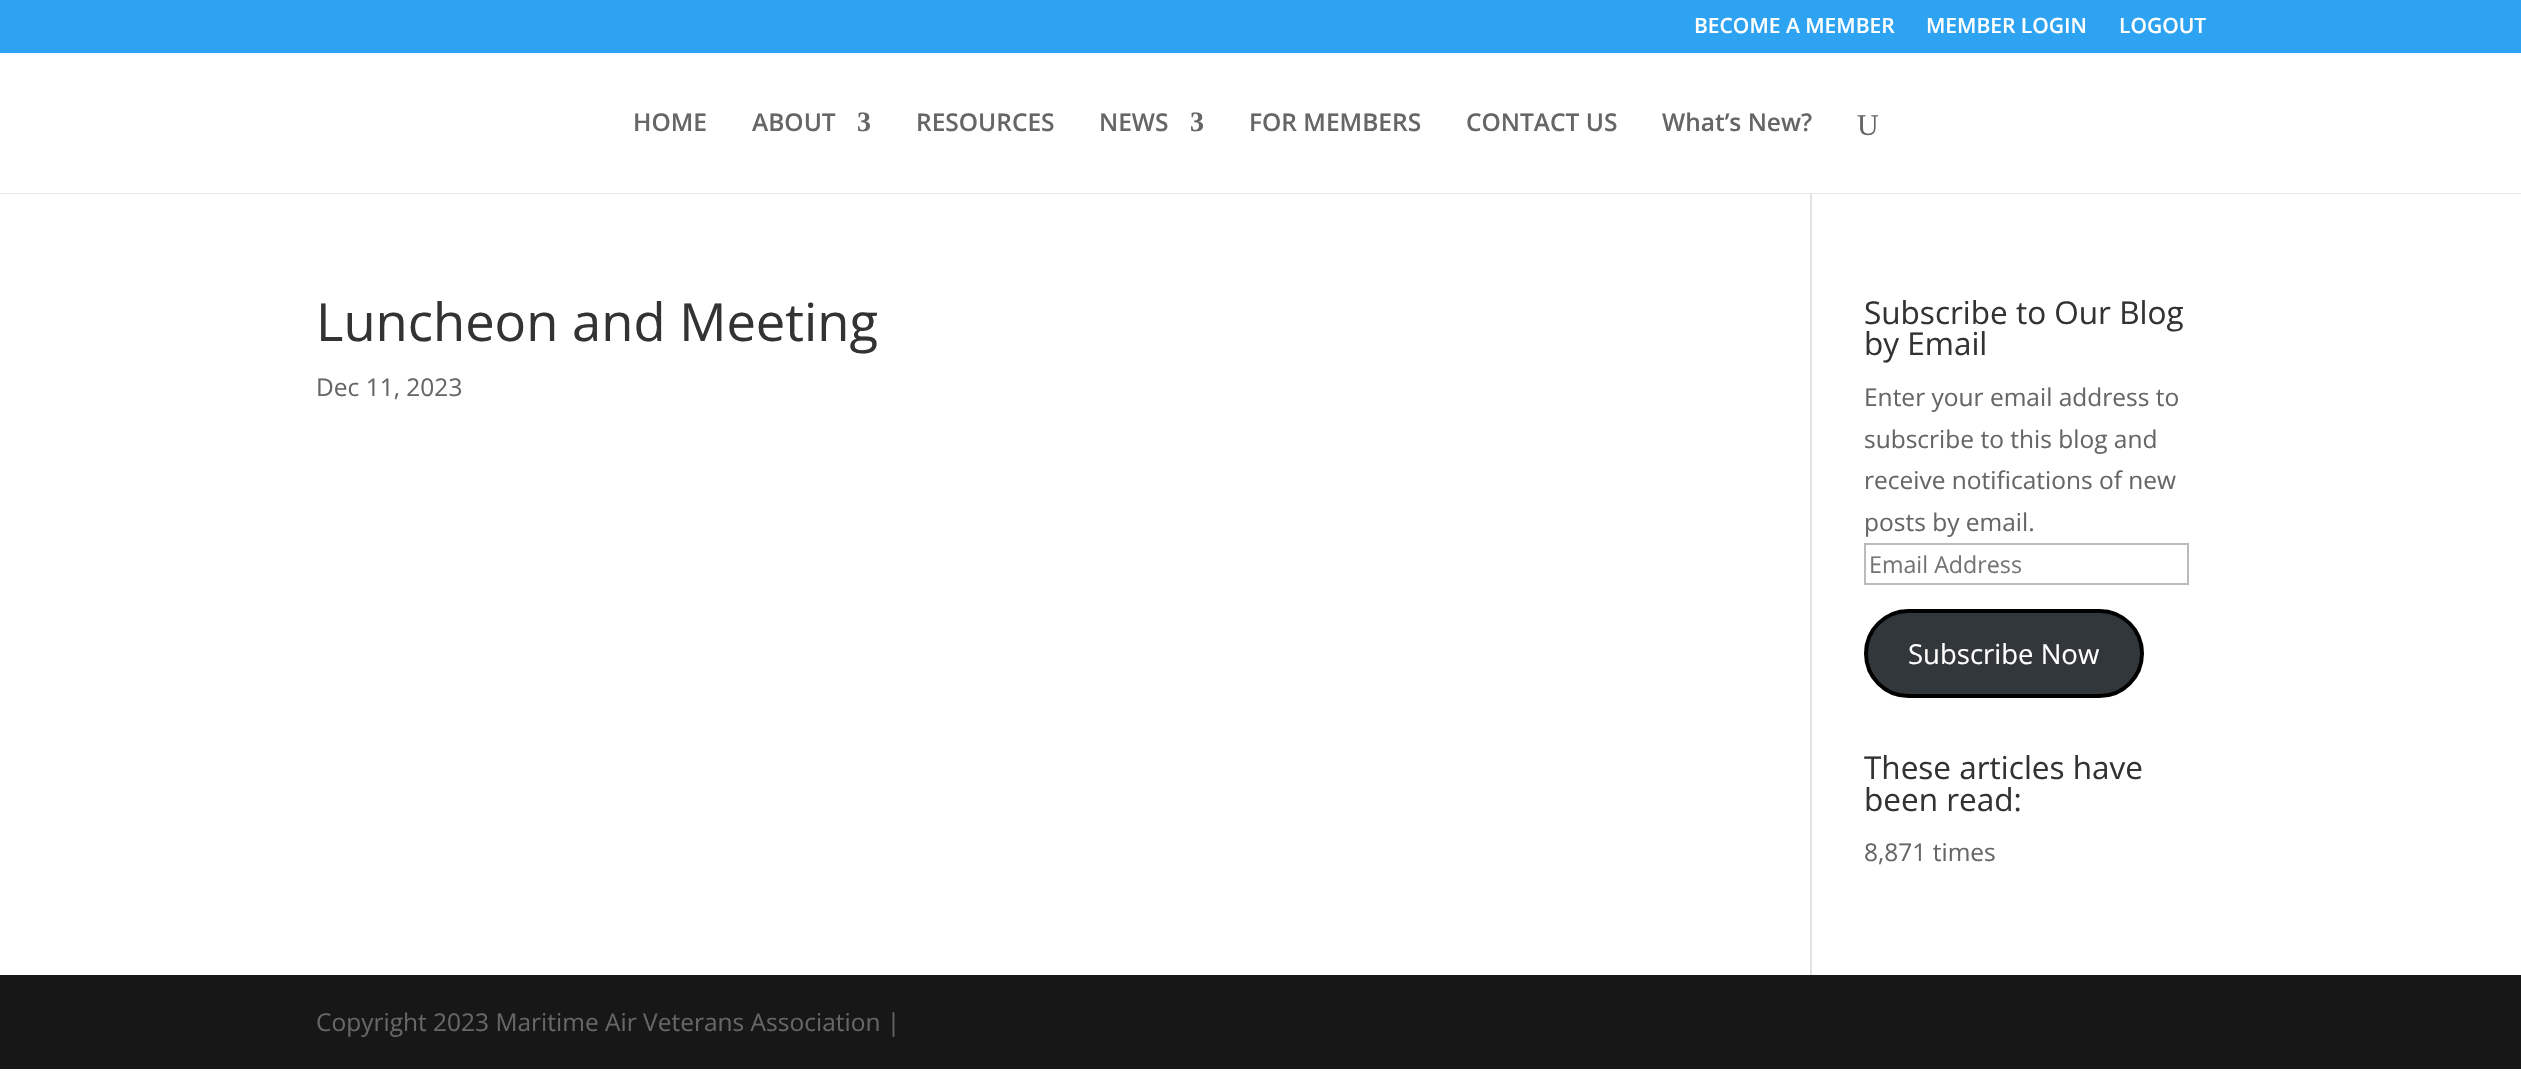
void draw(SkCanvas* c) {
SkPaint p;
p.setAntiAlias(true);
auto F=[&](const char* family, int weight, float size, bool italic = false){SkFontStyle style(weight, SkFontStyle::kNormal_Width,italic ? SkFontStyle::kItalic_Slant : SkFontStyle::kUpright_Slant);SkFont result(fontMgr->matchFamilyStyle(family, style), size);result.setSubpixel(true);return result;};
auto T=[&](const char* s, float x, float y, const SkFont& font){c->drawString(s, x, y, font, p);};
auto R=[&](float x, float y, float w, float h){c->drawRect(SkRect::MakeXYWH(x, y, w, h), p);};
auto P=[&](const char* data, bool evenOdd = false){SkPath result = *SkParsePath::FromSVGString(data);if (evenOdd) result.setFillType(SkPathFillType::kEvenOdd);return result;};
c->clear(0xffffffff);
p.setColor(0xff2ea3f2);
R(0,0,2521,53);
auto f1 = F("Open Sans",600,21);
p.setColor(0xffffffff);
T("BECOME A MEMBER",1694,33,f1);
T("MEMBER LOGIN",1926,33,f1);
T("LOGOUT",2119,33,f1);
p.setColor(0xffe6e6e6);
c->drawPath(P("M0 192v2h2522v-140v138z"),p);
p.setColor(0xffffffff);
R(0,192,2521,1);
auto f2 = F("Open Sans",600,24.5);
p.setColor(0xff666666);
T("HOME",633,131,f2);
T("ABOUT",752,131,f2);
auto f3 = F("Liberation Serif",700,28);
T("3",857,131,f3);
T("RESOURCES",916,131,f2);
T("NEWS",1099,131,f2);
T("3",1190,131,f3);
T("FOR MEMBERS",1249,131,f2);
T("CONTACT US",1466,131,f2);
T("What’s New?",1662,131,f2);
auto f4 = F("Liberation Serif",400,30);
T("U",1857,135,f4);
p.setColor(0xffe2e2e2);
R(1810,194,2,781);
auto f5 = F("Open Sans",400,52.5);
p.setColor(0xff333333);
T("Luncheon and Meeting",316,341,f5);
auto f6 = F("Open Sans",400,24.5);
p.setColor(0xff666666);
T("Dec 11, 2023",316,396,f6);
auto f7 = F("Open Sans",400,31.5);
p.setColor(0xff333333);
T("Subscribe to Our Blog",1864,324,f7);
T("by Email",1864,355,f7);
p.setColor(0xff666666);
T("Enter your email address to",1864,406,f6);
T("subscribe to this blog and",1864,448,f6);
T("receive notifications of new",1864,489,f6);
T("posts by email.",1864,531,f6);
p.setStroke(true);
p.setStrokeWidth(2);
p.setColor(0xffbbbbbb);
c->drawRect(SkRect::MakeXYWH(1865,544,323,40),p);
auto f8 = F("Open Sans",400,23.25);
p.setStroke(false);
p.setColor(0xff757575);
T("Email Address",1869,573,f8);
p.setColor(0xff32373c);
c->drawRoundRect(SkRect::MakeXYWH(1866,611,276,85),42.5,42.5,p);
p.setStroke(true);
p.setStrokeWidth(4);
p.setColor(0xff000000);
c->drawRoundRect(SkRect::MakeXYWH(1866,611,276,85),42.5,42.5,p);
auto f9 = F("Open Sans",400,27.5);
p.setStroke(false);
p.setColor(0xffffffff);
T("Subscribe Now",1908,664,f9);
p.setColor(0xff333333);
T("These articles have",1864,779,f7);
T("been read:",1864,811,f7);
p.setColor(0xff666666);
T("8,871 times",1864,861,f6);
p.setColor(0xff171717);
R(0,975,2521,94);
p.setColor(0xff666666);
T("Copyright 2023 Maritime Air Veterans Association |",316,1031,f6);
}
